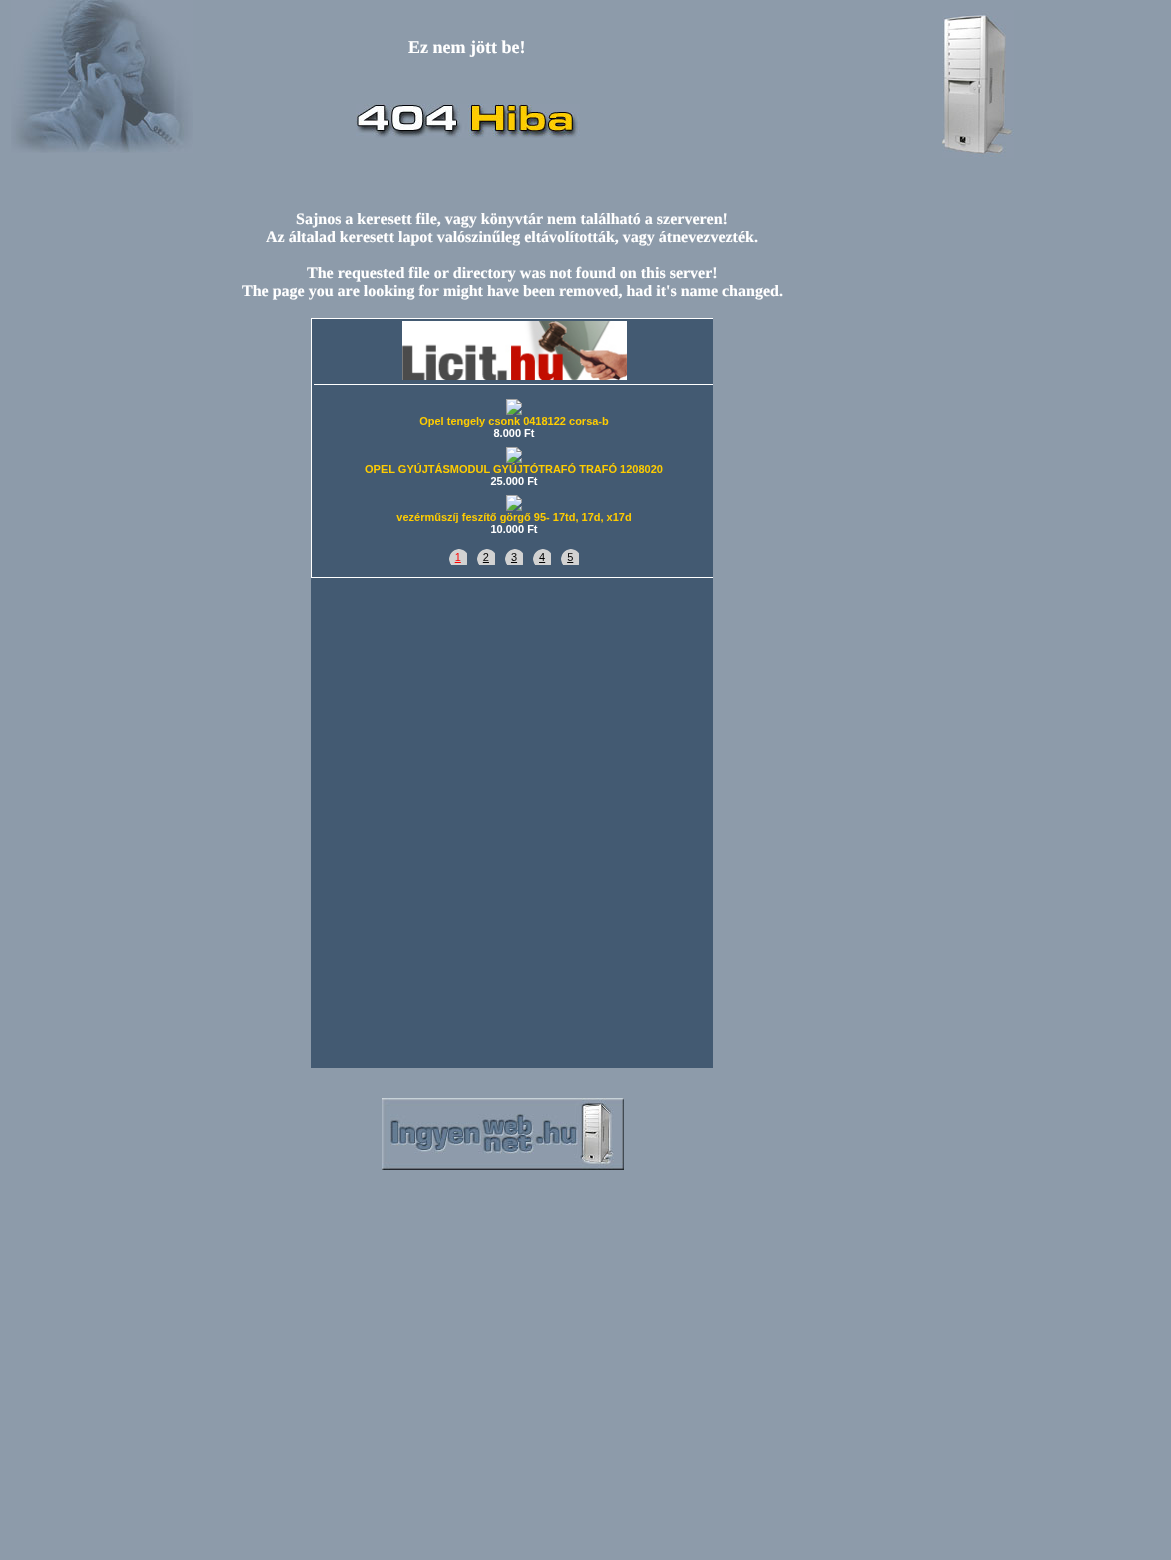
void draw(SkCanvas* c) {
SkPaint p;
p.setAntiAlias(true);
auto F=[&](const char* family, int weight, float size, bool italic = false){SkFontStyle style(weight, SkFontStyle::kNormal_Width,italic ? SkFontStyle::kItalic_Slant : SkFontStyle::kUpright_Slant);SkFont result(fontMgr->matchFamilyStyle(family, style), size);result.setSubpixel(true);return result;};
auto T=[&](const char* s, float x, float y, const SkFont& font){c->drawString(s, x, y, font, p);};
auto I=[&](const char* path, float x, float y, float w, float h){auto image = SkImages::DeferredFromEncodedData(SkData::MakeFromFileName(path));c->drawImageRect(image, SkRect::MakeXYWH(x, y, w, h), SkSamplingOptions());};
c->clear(0xff8d9baa);
I("1.png",11,0,182,153);
auto f1 = F("Liberation Serif",700,18);
p.setColor(0xffffffff);
T("Ez nem jött be!",408,53,f1);
I("2.png",942,10,72,148);
I("3.png",356,104,224,34);
auto f2 = F("Liberation Serif",700,16);
T("Sajnos a keresett file, vagy könyvtár nem található a szerveren!",296,224,f2);
T("Az általad keresett lapot valószinűleg eltávolították, vagy átnevezvezték.",266,242,f2);
T("The requested file or directory was not found on this server!",307,278,f2);
T("The page you are looking for might have been removed, had it's name changed.",242,296,f2);
I("4.png",311,318,402,750);
I("5.png",382,1098,242,72);
}
